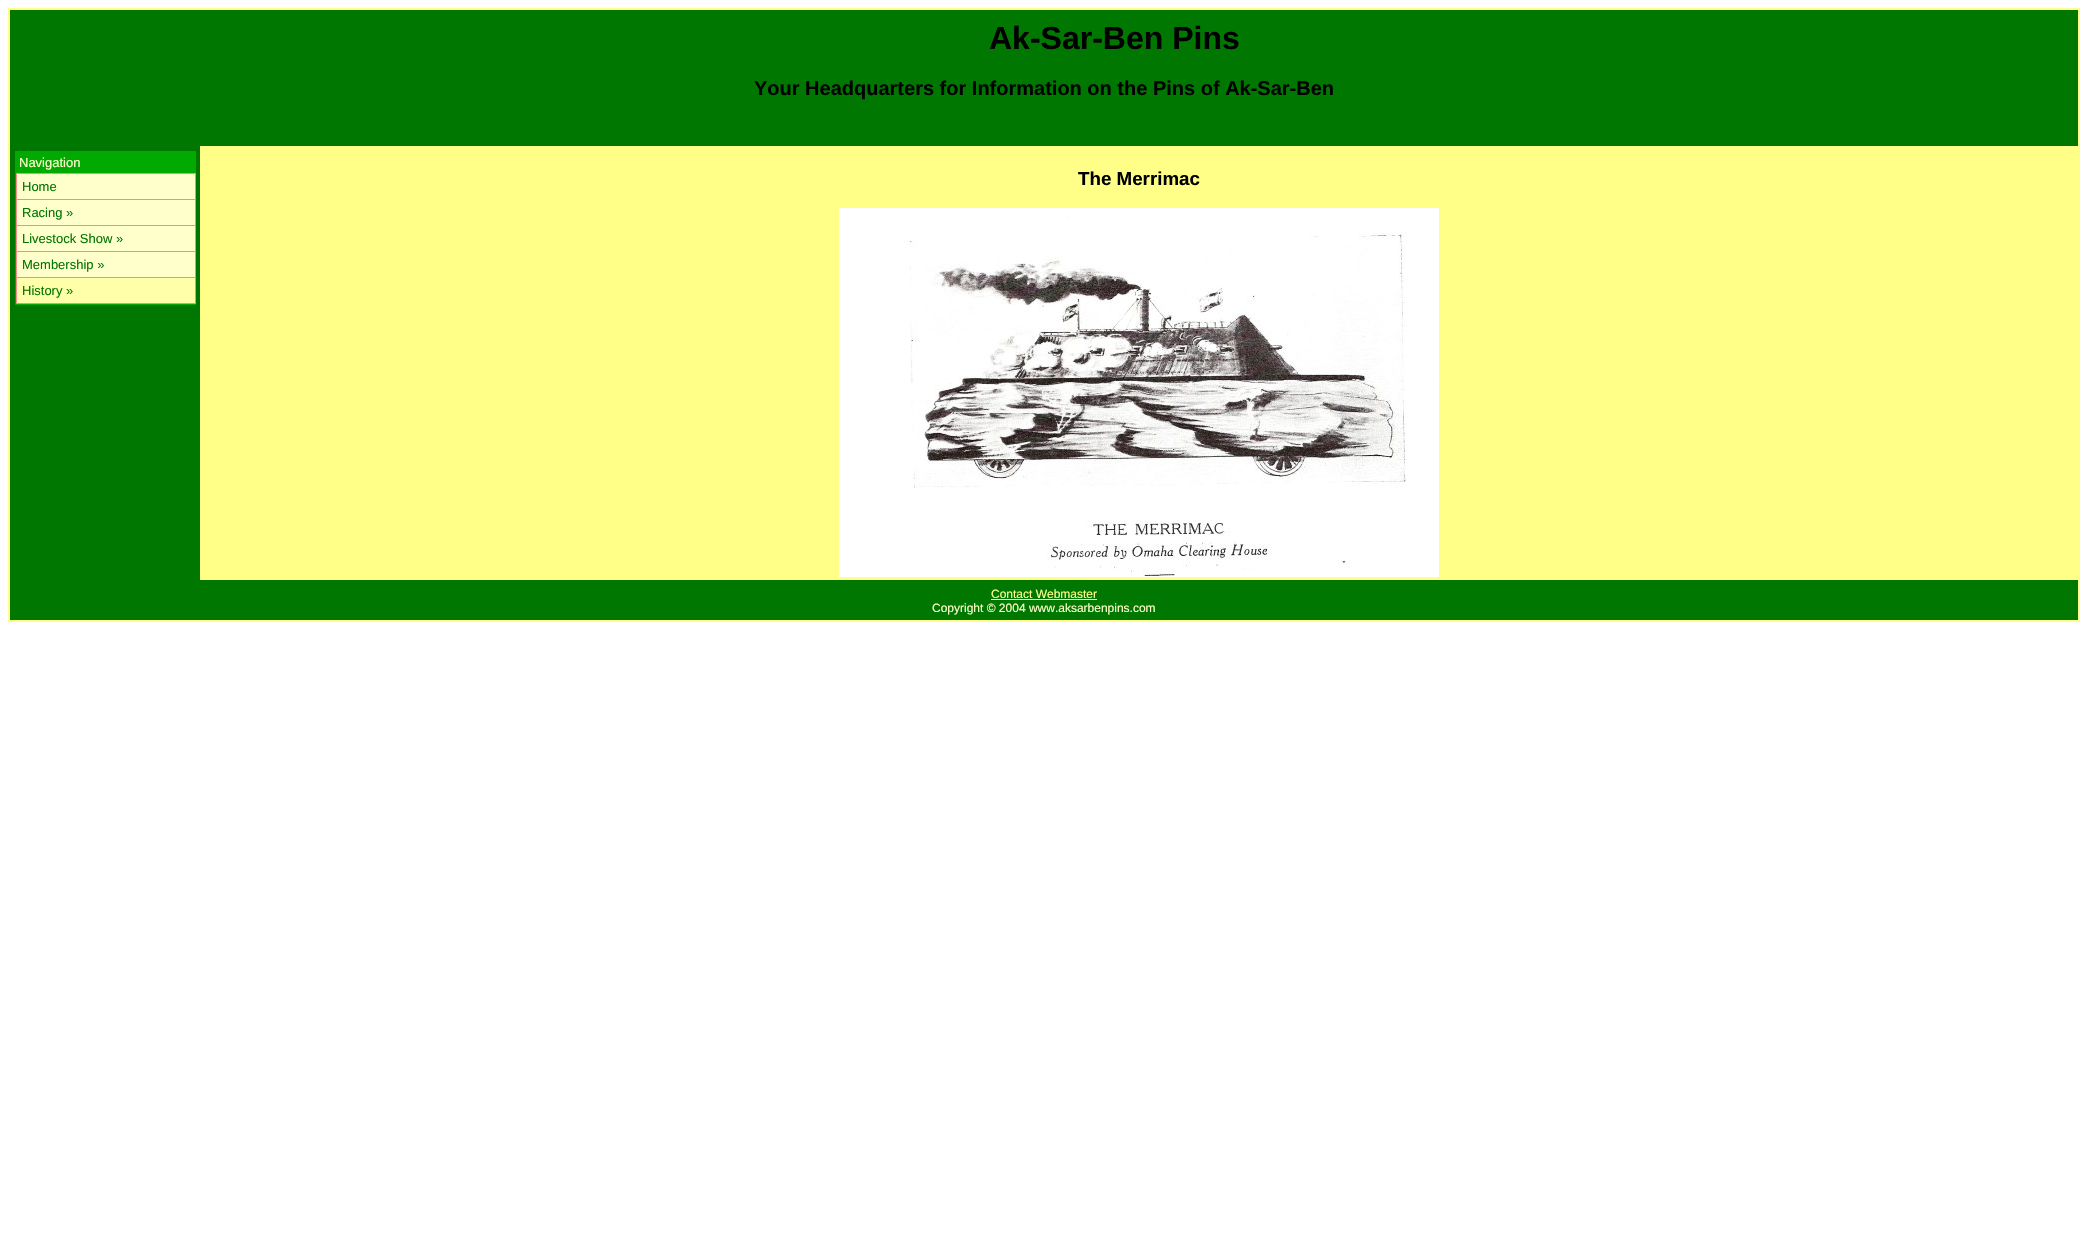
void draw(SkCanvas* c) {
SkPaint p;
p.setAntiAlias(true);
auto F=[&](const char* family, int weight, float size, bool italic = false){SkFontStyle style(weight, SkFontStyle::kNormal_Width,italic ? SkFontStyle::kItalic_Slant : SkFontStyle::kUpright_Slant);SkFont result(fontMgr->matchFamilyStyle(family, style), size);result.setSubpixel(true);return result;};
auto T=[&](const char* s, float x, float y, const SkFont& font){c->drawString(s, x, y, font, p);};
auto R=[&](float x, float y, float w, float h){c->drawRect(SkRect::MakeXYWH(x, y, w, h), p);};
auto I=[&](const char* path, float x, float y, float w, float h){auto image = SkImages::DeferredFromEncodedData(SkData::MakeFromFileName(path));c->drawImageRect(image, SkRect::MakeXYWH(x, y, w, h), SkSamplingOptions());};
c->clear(0xffffffff);
p.setColor(0xff007700);
c->drawRect(SkRect::MakeXYWH(9,9,2070,612),p);
p.setStroke(true);
p.setStrokeWidth(2);
p.setColor(0xffffff88);
c->drawRect(SkRect::MakeXYWH(9,9,2070,612),p);
auto f1 = F("Liberation Sans",700,32);
p.setStroke(false);
p.setColor(0xff000000);
T("Ak-Sar-Ben Pins",989,49,f1);
auto f2 = F("Liberation Sans",700,20);
T("Your Headquarters for Information on the Pins of Ak-Sar-Ben",754,95,f2);
p.setStroke(true);
p.setStrokeWidth(1);
p.setColor(0xff00aa00);
c->drawRect(SkRect::MakeXYWH(15.5,151.5,180,153),p);
p.setStroke(false);
R(16,152,179,21);
auto f3 = F("Liberation Sans",400,13);
p.setColor(0xffffffcc);
T("Navigation",19,167,f3);
p.setColor(0xffff8888);
R(16,303,180,1);
p.setColor(0xffffffcc);
R(17,174,178,25);
p.setColor(0xffff8888);
R(16,173,180,1);
R(195,173,1,26);
R(16,173,1,26);
p.setColor(0xff007700);
T("Home",22,191,f3);
p.setColor(0xffffffcc);
R(17,200,178,25);
p.setColor(0xffff8888);
R(16,199,180,1);
R(195,199,1,26);
R(16,199,1,26);
p.setColor(0xff007700);
T("Racing »",22,217,f3);
p.setColor(0xffffffcc);
R(17,226,178,25);
p.setColor(0xffff8888);
R(16,225,180,1);
R(195,225,1,26);
R(16,225,1,26);
p.setColor(0xff007700);
T("Livestock Show »",22,243,f3);
p.setColor(0xffffffcc);
R(17,252,178,25);
p.setColor(0xffff8888);
R(16,251,180,1);
R(195,251,1,26);
R(16,251,1,26);
p.setColor(0xff007700);
T("Membership »",22,269,f3);
p.setColor(0xffffffaa);
R(17,278,178,25);
p.setColor(0xffff8888);
R(16,277,180,1);
R(195,277,1,26);
R(16,277,1,26);
p.setColor(0xff007700);
T("History »",22,295,f3);
p.setColor(0xffffff88);
R(200,146,1878,434);
auto f4 = F("Liberation Sans",700,18.75);
p.setColor(0xff000000);
T("The Merrimac",1078,185,f4);
I("1.png",839,208,600,369);
auto f5 = F("Liberation Sans",400,12);
p.setColor(0xffffff88);
T("Contact Webmaster",991,598,f5);
R(991,599,106,1);
p.setColor(0xffffffcc);
T("Copyright © 2004 www.aksarbenpins.com",932,612,f5);
}
